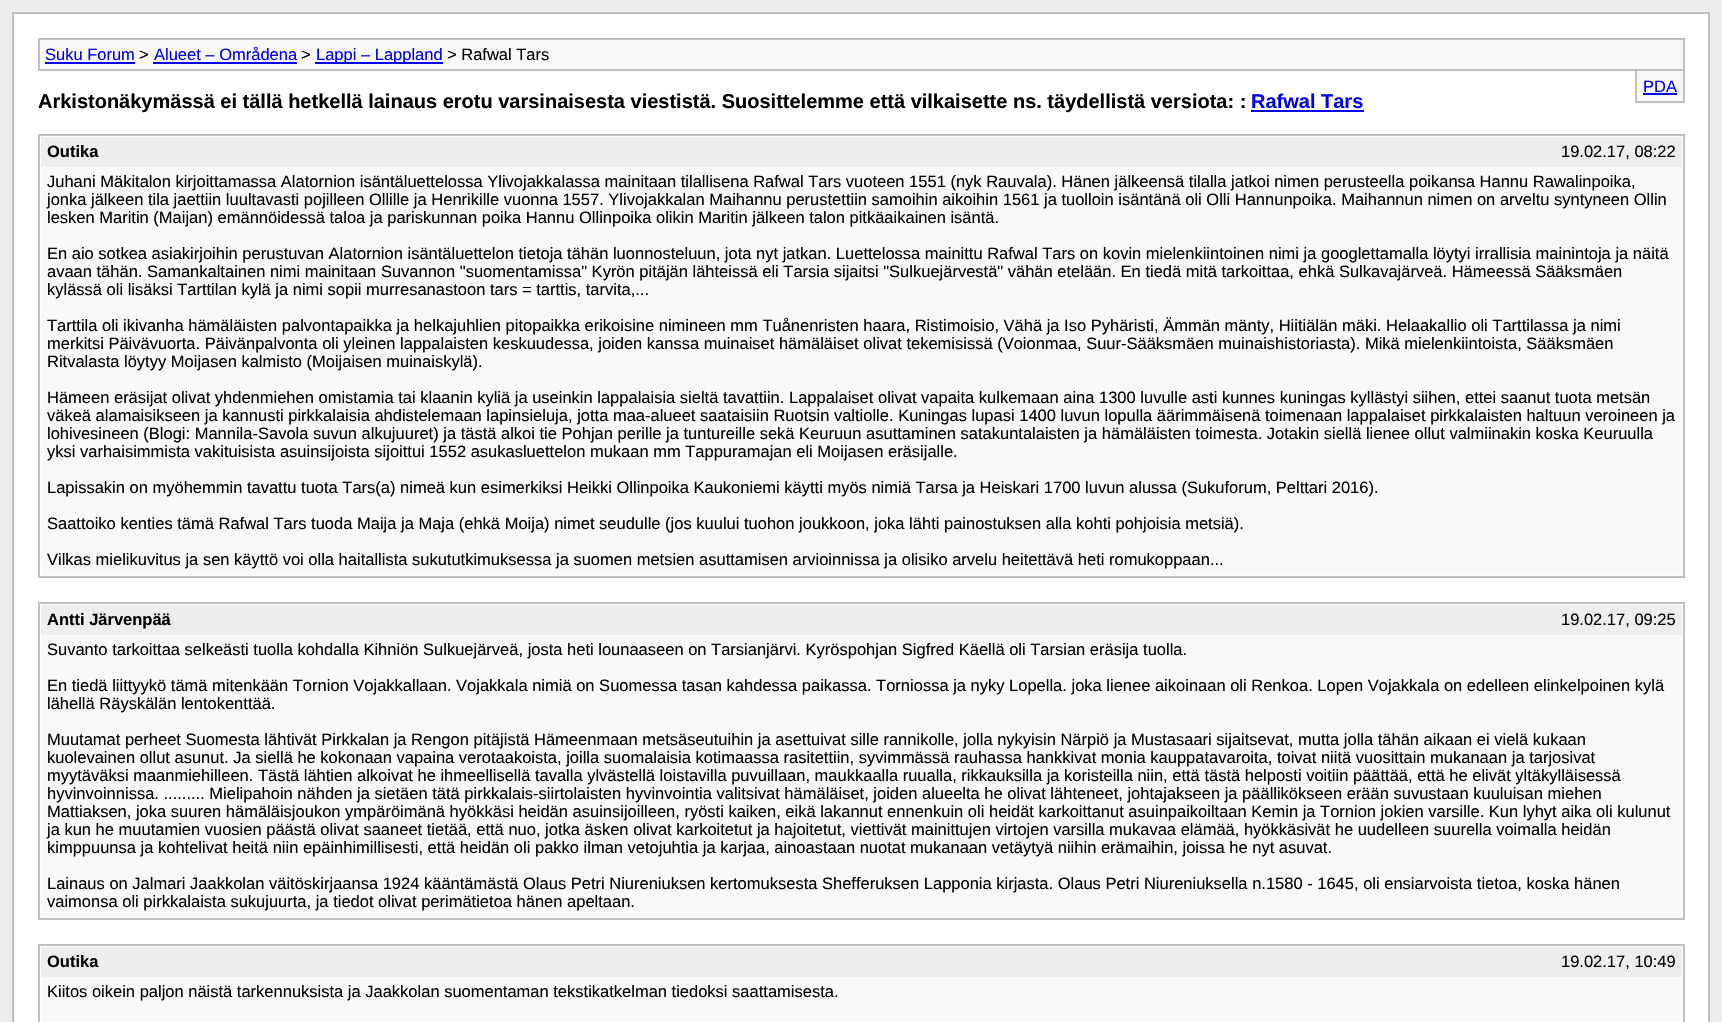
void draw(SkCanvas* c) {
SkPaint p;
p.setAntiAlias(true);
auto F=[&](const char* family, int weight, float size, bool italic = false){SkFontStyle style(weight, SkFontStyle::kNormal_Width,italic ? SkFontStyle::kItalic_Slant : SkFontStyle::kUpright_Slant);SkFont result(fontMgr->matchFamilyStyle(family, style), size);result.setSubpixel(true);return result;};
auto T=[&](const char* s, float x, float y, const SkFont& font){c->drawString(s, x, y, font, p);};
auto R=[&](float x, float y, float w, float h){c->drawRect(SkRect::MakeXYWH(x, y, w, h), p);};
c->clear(0xffeeeeee);
p.setColor(0xffffffff);
c->drawRect(SkRect::MakeXYWH(13,13,1696,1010),p);
p.setStroke(true);
p.setStrokeWidth(2);
p.setColor(0xffc0c0c0);
c->drawRect(SkRect::MakeXYWH(13,13,1696,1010),p);
p.setStroke(false);
p.setColor(0xfff9f9f9);
c->drawRect(SkRect::MakeXYWH(39,39,1645,31),p);
p.setStroke(true);
p.setColor(0xffc0c0c0);
c->drawRect(SkRect::MakeXYWH(39,39,1645,31),p);
auto f1 = F("Liberation Sans",400,16.5);
p.setStroke(false);
p.setColor(0xff0000ee);
T("Suku Forum",45,60,f1);
R(45,62,90,2);
p.setColor(0xff000000);
T(">",139,60,f1);
p.setColor(0xff0000ee);
T("Alueet – Områdena",154,60,f1);
R(153,62,144,2);
p.setColor(0xff000000);
T(">",301,60,f1);
p.setColor(0xff0000ee);
R(315,62,128,2);
T("Lappi – Lappland",316,60,f1);
p.setColor(0xff000000);
T("> Rafwal Tars",447,60,f1);
p.setColor(0xfff9f9f9);
R(1637,71,46,30);
p.setColor(0xffc0c0c0);
R(1683,71,2,31);
R(1635,101,50,2);
R(1635,71,2,31);
p.setColor(0xff0000ee);
T("PDA",1643,92,f1);
R(1643,93,34,2);
auto f2 = F("Liberation Sans",700,20);
p.setColor(0xff000000);
T("Arkistonäkymässä ei tällä hetkellä lainaus erotu varsinaisesta viestistä. Suosittelemme että vilkaisette ns. täydellistä versiota: :",38,108,f2);
p.setColor(0xff0000ee);
T("Rafwal Tars",1251,108,f2);
R(1251,110,113,2);
p.setStroke(true);
p.setColor(0xffc0c0c0);
c->drawRect(SkRect::MakeXYWH(39,135,1645,442),p);
p.setStroke(false);
p.setColor(0xffeeeeee);
R(41,137,1641,30);
auto f3 = F("Liberation Sans",700,16.5);
p.setColor(0xff000000);
T("Outika",47,157,f3);
T("19.02.17, 08:22",1561,157,f1);
p.setColor(0xfff9f9f9);
R(41,167,1641,408);
p.setColor(0xff000000);
T("Juhani Mäkitalon kirjoittamassa Alatornion isäntäluettelossa Ylivojakkalassa mainitaan tilallisena Rafwal Tars vuoteen 1551 (nyk Rauvala). Hänen jälkeensä tilalla jatkoi nimen perusteella poikansa Hannu Rawalinpoika,",47,187,f1);
T("jonka jälkeen tila jaettiin luultavasti pojilleen Ollille ja Henrikille vuonna 1557. Ylivojakkalan Maihannu perustettiin samoihin aikoihin 1561 ja tuolloin isäntänä oli Olli Hannunpoika. Maihannun nimen on arveltu syntyneen Ollin",47,205,f1);
T("lesken Maritin (Maijan) emännöidessä taloa ja pariskunnan poika Hannu Ollinpoika olikin Maritin jälkeen talon pitkäaikainen isäntä.",47,223,f1);
T("En aio sotkea asiakirjoihin perustuvan Alatornion isäntäluettelon tietoja tähän luonnosteluun, jota nyt jatkan. Luettelossa mainittu Rafwal Tars on kovin mielenkiintoinen nimi ja googlettamalla löytyi irrallisia mainintoja ja näitä",47,259,f1);
T("avaan tähän. Samankaltainen nimi mainitaan Suvannon \"suomentamissa\" Kyrön pitäjän lähteissä eli Tarsia sijaitsi \"Sulkuejärvestä\" vähän etelään. En tiedä mitä tarkoittaa, ehkä Sulkavajärveä. Hämeessä Sääksmäen",47,277,f1);
T("kylässä oli lisäksi Tarttilan kylä ja nimi sopii murresanastoon tars = tarttis, tarvita,...",47,295,f1);
T("Tarttila oli ikivanha hämäläisten palvontapaikka ja helkajuhlien pitopaikka erikoisine nimineen mm Tuånenristen haara, Ristimoisio, Vähä ja Iso Pyhäristi, Ämmän mänty, Hiitiälän mäki. Helaakallio oli Tarttilassa ja nimi",47,331,f1);
T("merkitsi Päivävuorta. Päivänpalvonta oli yleinen lappalaisten keskuudessa, joiden kanssa muinaiset hämäläiset olivat tekemisissä (Voionmaa, Suur-Sääksmäen muinaishistoriasta). Mikä mielenkiintoista, Sääksmäen",47,349,f1);
T("Ritvalasta löytyy Moijasen kalmisto (Moijaisen muinaiskylä).",47,367,f1);
T("Hämeen eräsijat olivat yhdenmiehen omistamia tai klaanin kyliä ja useinkin lappalaisia sieltä tavattiin. Lappalaiset olivat vapaita kulkemaan aina 1300 luvulle asti kunnes kuningas kyllästyi siihen, ettei saanut tuota metsän",47,403,f1);
T("väkeä alamaisikseen ja kannusti pirkkalaisia ahdistelemaan lapinsieluja, jotta maa-alueet saataisiin Ruotsin valtiolle. Kuningas lupasi 1400 luvun lopulla äärimmäisenä toimenaan lappalaiset pirkkalaisten haltuun veroineen ja",47,421,f1);
T("lohivesineen (Blogi: Mannila-Savola suvun alkujuuret) ja tästä alkoi tie Pohjan perille ja tuntureille sekä Keuruun asuttaminen satakuntalaisten ja hämäläisten toimesta. Jotakin siellä lienee ollut valmiinakin koska Keuruulla",47,439,f1);
T("yksi varhaisimmista vakituisista asuinsijoista sijoittui 1552 asukasluettelon mukaan mm Tappuramajan eli Moijasen eräsijalle.",47,457,f1);
T("Lapissakin on myöhemmin tavattu tuota Tars(a) nimeä kun esimerkiksi Heikki Ollinpoika Kaukoniemi käytti myös nimiä Tarsa ja Heiskari 1700 luvun alussa (Sukuforum, Pelttari 2016).",47,493,f1);
T("Saattoiko kenties tämä Rafwal Tars tuoda Maija ja Maja (ehkä Moija) nimet seudulle (jos kuului tuohon joukkoon, joka lähti painostuksen alla kohti pohjoisia metsiä).",47,529,f1);
T("Vilkas mielikuvitus ja sen käyttö voi olla haitallista sukututkimuksessa ja suomen metsien asuttamisen arvioinnissa ja olisiko arvelu heitettävä heti romukoppaan...",47,565,f1);
p.setStroke(true);
p.setColor(0xffc0c0c0);
c->drawRect(SkRect::MakeXYWH(39,603,1645,316),p);
p.setStroke(false);
p.setColor(0xffeeeeee);
R(41,605,1641,30);
p.setColor(0xff000000);
T("Antti Järvenpää",47,625,f3);
T("19.02.17, 09:25",1561,625,f1);
p.setColor(0xfff9f9f9);
R(41,635,1641,282);
p.setColor(0xff000000);
T("Suvanto tarkoittaa selkeästi tuolla kohdalla Kihniön Sulkuejärveä, josta heti lounaaseen on Tarsianjärvi. Kyröspohjan Sigfred Käellä oli Tarsian eräsija tuolla.",47,655,f1);
T("En tiedä liittyykö tämä mitenkään Tornion Vojakkallaan. Vojakkala nimiä on Suomessa tasan kahdessa paikassa. Torniossa ja nyky Lopella. joka lienee aikoinaan oli Renkoa. Lopen Vojakkala on edelleen elinkelpoinen kylä",47,691,f1);
T("lähellä Räyskälän lentokenttää.",47,709,f1);
T("Muutamat perheet Suomesta lähtivät Pirkkalan ja Rengon pitäjistä Hämeenmaan metsäseutuihin ja asettuivat sille rannikolle, jolla nykyisin Närpiö ja Mustasaari sijaitsevat, mutta jolla tähän aikaan ei vielä kukaan",47,745,f1);
T("kuolevainen ollut asunut. Ja siellä he kokonaan vapaina verotaakoista, joilla suomalaisia kotimaassa rasitettiin, syvimmässä rauhassa hankkivat monia kauppatavaroita, toivat niitä vuosittain mukanaan ja tarjosivat",47,763,f1);
T("myytäväksi maanmiehilleen. Tästä lähtien alkoivat he ihmeellisellä tavalla ylvästellä loistavilla puvuillaan, maukkaalla ruualla, rikkauksilla ja koristeilla niin, että tästä helposti voitiin päättää, että he elivät yltäkylläisessä",47,781,f1);
T("hyvinvoinnissa. ......... Mielipahoin nähden ja sietäen tätä pirkkalais-siirtolaisten hyvinvointia valitsivat hämäläiset, joiden alueelta he olivat lähteneet, johtajakseen ja päällikökseen erään suvustaan kuuluisan miehen",47,799,f1);
T("Mattiaksen, joka suuren hämäläisjoukon ympäröimänä hyökkäsi heidän asuinsijoilleen, ryösti kaiken, eikä lakannut ennenkuin oli heidät karkoittanut asuinpaikoiltaan Kemin ja Tornion jokien varsille. Kun lyhyt aika oli kulunut",47,817,f1);
T("ja kun he muutamien vuosien päästä olivat saaneet tietää, että nuo, jotka äsken olivat karkoitetut ja hajoitetut, viettivät mainittujen virtojen varsilla mukavaa elämää, hyökkäsivät he uudelleen suurella voimalla heidän",47,835,f1);
T("kimppuunsa ja kohtelivat heitä niin epäinhimillisesti, että heidän oli pakko ilman vetojuhtia ja karjaa, ainoastaan nuotat mukanaan vetäytyä niihin erämaihin, joissa he nyt asuvat.",47,853,f1);
T("Lainaus on Jalmari Jaakkolan väitöskirjaansa 1924 kääntämästä Olaus Petri Niureniuksen kertomuksesta Shefferuksen Lapponia kirjasta. Olaus Petri Niureniuksella n.1580 - 1645, oli ensiarvoista tietoa, koska hänen",47,889,f1);
T("vaimonsa oli pirkkalaista sukujuurta, ja tiedot olivat perimätietoa hänen apeltaan.",47,907,f1);
p.setStroke(true);
p.setColor(0xffc0c0c0);
c->drawRect(SkRect::MakeXYWH(39,945,1645,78),p);
p.setStroke(false);
p.setColor(0xffeeeeee);
R(41,947,1641,30);
p.setColor(0xff000000);
T("Outika",47,967,f3);
T("19.02.17, 10:49",1561,967,f1);
p.setColor(0xfff9f9f9);
R(41,977,1641,45);
p.setColor(0xff000000);
T("Kiitos oikein paljon näistä tarkennuksista ja Jaakkolan suomentaman tekstikatkelman tiedoksi saattamisesta.",47,997,f1);
}
